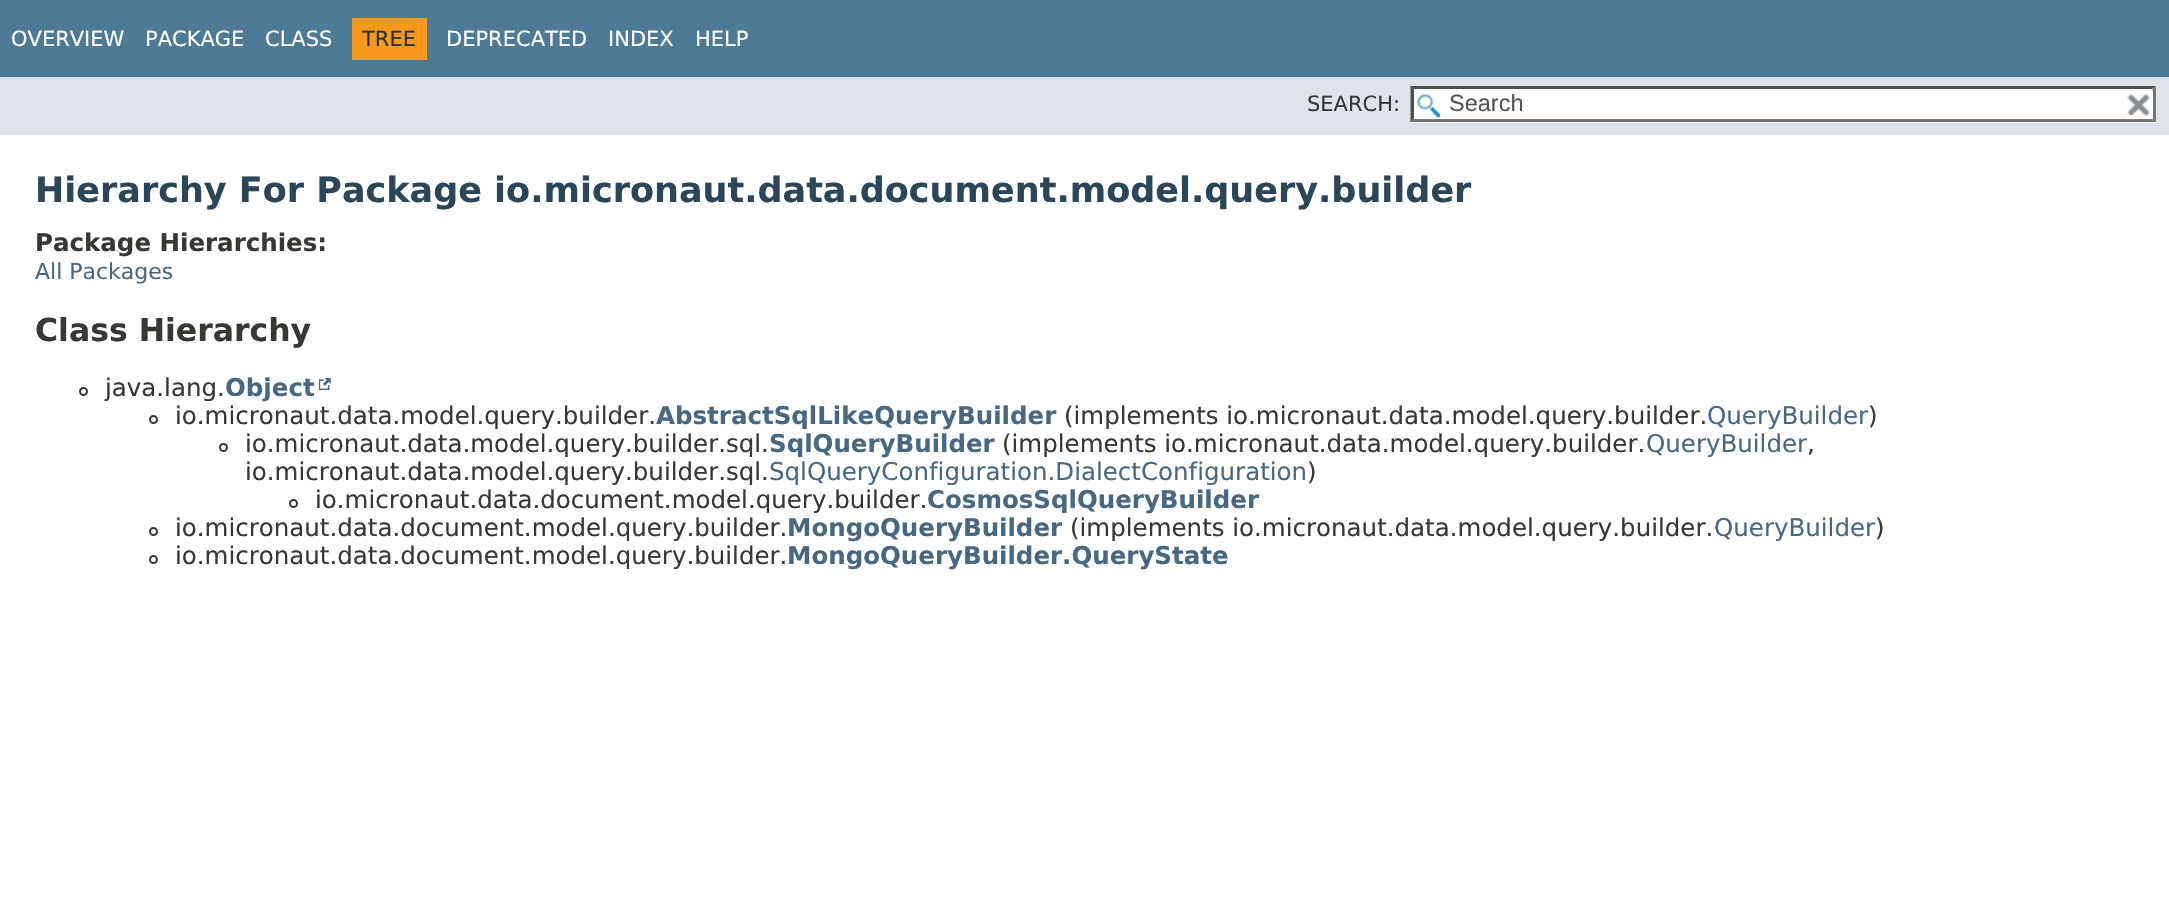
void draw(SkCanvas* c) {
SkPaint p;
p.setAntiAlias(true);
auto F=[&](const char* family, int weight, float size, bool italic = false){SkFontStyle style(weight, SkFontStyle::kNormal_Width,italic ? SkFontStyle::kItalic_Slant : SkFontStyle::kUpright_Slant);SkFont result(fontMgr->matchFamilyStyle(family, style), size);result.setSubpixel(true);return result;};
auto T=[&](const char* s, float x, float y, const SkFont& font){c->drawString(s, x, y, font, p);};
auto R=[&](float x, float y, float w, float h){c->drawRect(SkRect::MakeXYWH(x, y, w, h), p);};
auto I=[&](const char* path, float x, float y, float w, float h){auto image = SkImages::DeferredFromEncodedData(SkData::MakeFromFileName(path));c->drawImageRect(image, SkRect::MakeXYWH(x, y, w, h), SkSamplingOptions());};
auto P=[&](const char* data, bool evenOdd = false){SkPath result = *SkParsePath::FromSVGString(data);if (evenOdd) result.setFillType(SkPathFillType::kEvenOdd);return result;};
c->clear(0xffffffff);
p.setColor(0xff4d7a97);
R(0,0,2169,77);
auto f1 = F("DejaVu Sans",400,21);
p.setColor(0xffffffff);
T("OVERVIEW",11,46,f1);
T("PACKAGE",145,46,f1);
T("CLASS",265,46,f1);
p.setColor(0xfff8981d);
R(352,18,75,42);
p.setColor(0xff253441);
T("TREE",362,46,f1);
p.setColor(0xffffffff);
T("DEPRECATED",446,46,f1);
T("INDEX",608,46,f1);
T("HELP",695,46,f1);
p.setColor(0xffdee3e9);
R(0,77,2169,58);
p.setColor(0xff353833);
T("SEARCH:",1307,111,f1);
p.setColor(0xffffffff);
R(1411,86,745,37);
I("1.png",1417,94,24,24);
p.setColor(0xff4f4f4f);
c->drawPath(P("M1410 86h746l-4 3h-738z"),p);
p.setColor(0xff767676);
c->drawPath(P("M2156 86v36.5l-3.5-3.5v-30z"),p);
c->drawPath(P("M2156 122h-746l4-3h738z"),p);
p.setColor(0xff4f4f4f);
c->drawPath(P("M1410.5 122.5v-36.5l3.5 3v30z"),p);
auto f2 = F("Liberation Sans",400,23.5);
p.setColor(0xff545454);
T("Search",1449,111,f2);
p.setColor(0xffffffff);
R(2152,91,1,28);
I("2.png",2127,94,23,22);
auto f3 = F("DejaVu Sans",700,35);
p.setColor(0xff2c4557);
T("Hierarchy For Package io.micronaut.data.document.model.query.builder",35,202,f3);
auto f4 = F("DejaVu Sans",700,24.5);
p.setColor(0xff353833);
T("Package Hierarchies:",35,251,f4);
auto f5 = F("DejaVu Sans",400,22);
p.setColor(0xff4a6782);
T("All Packages",35,279,f5);
auto f6 = F("DejaVu Sans",700,31.5);
p.setColor(0xff353833);
T("Class Hierarchy",35,341,f6);
p.setStroke(true);
p.setStrokeWidth(2);
c->drawCircle(83.5,391.5,3.5,p);
auto f7 = F("DejaVu Sans",400,24.5);
p.setStroke(false);
T("java.lang.",105,396,f7);
p.setColor(0xff4a6782);
T("Object",225,396,f4);
I("3.png",319,378,12,12);
p.setStroke(true);
p.setColor(0xff353833);
c->drawCircle(153.5,419.5,3.5,p);
p.setStroke(false);
T("io.micronaut.data.model.query.builder.",175,424,f7);
p.setColor(0xff4a6782);
T("AbstractSqlLikeQueryBuilder",656,424,f4);
p.setColor(0xff353833);
T("(implements io.micronaut.data.model.query.builder.",1064,424,f7);
p.setColor(0xff4a6782);
T("QueryBuilder",1707,424,f7);
p.setColor(0xff353833);
T(")",1868,424,f7);
p.setStroke(true);
c->drawCircle(223.5,447.5,3.5,p);
p.setStroke(false);
T("io.micronaut.data.model.query.builder.sql.",245,452,f7);
p.setColor(0xff4a6782);
T("SqlQueryBuilder",769,452,f4);
p.setColor(0xff353833);
T("(implements io.micronaut.data.model.query.builder.",1002,452,f7);
p.setColor(0xff4a6782);
T("QueryBuilder",1646,452,f7);
p.setColor(0xff353833);
T(",",1807,452,f7);
T("io.micronaut.data.model.query.builder.sql.",245,480,f7);
p.setColor(0xff4a6782);
T("SqlQueryConfiguration.DialectConfiguration",769,480,f7);
p.setColor(0xff353833);
T(")",1307,480,f7);
p.setStroke(true);
c->drawCircle(293.5,503.5,3.5,p);
p.setStroke(false);
T("io.micronaut.data.document.model.query.builder.",315,508,f7);
p.setColor(0xff4a6782);
T("CosmosSqlQueryBuilder",927,508,f4);
p.setStroke(true);
p.setColor(0xff353833);
c->drawCircle(153.5,531.5,3.5,p);
p.setStroke(false);
T("io.micronaut.data.document.model.query.builder.",175,536,f7);
p.setColor(0xff4a6782);
T("MongoQueryBuilder",787,536,f4);
p.setColor(0xff353833);
T("(implements io.micronaut.data.model.query.builder.",1070,536,f7);
p.setColor(0xff4a6782);
T("QueryBuilder",1714,536,f7);
p.setColor(0xff353833);
T(")",1875,536,f7);
p.setStroke(true);
c->drawCircle(153.5,559.5,3.5,p);
p.setStroke(false);
T("io.micronaut.data.document.model.query.builder.",175,564,f7);
p.setColor(0xff4a6782);
T("MongoQueryBuilder.QueryState",787,564,f4);
}
